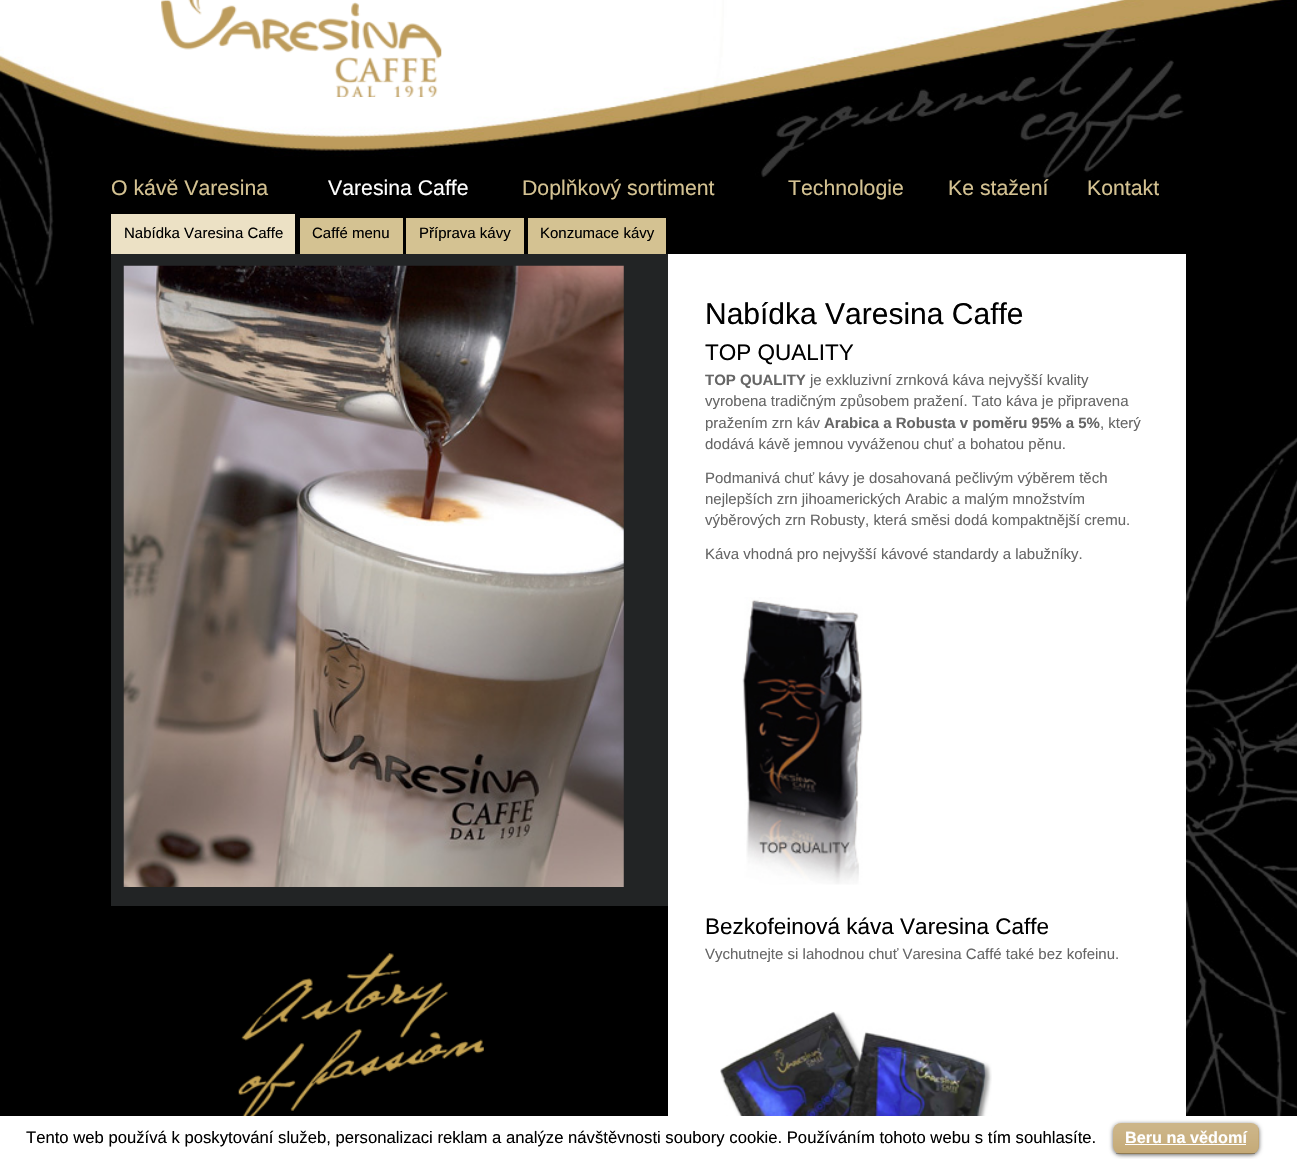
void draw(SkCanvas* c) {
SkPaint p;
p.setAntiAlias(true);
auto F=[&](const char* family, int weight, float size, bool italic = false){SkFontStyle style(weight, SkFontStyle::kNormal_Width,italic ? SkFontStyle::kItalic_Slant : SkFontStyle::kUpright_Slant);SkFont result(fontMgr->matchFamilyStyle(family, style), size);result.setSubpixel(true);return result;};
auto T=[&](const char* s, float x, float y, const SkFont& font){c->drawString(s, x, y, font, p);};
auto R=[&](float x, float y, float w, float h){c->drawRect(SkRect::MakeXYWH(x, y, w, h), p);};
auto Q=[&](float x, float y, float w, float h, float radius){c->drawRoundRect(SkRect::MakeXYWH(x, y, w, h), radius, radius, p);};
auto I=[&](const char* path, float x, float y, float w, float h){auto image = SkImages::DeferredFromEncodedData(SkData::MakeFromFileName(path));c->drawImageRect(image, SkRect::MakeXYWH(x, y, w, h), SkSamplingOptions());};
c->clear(0xffffffff);
I("1.png",0,0,1297,1116);
I("2.png",161,0,281,97);
auto f1 = F("Liberation Sans",400,21.25);
p.setColor(0xffd4c292);
T("O kávě Varesina",111,195,f1);
p.setColor(0xffffffff);
T("Varesina Caffe",328,195,f1);
p.setColor(0xffd4c292);
T("Doplňkový sortiment",522,195,f1);
T("Technologie",788,195,f1);
T("Ke stažení",948,195,f1);
T("Kontakt",1087,195,f1);
p.setColor(0xffece1c5);
R(111,214,184,40);
auto f2 = F("Liberation Sans",400,15);
p.setColor(0xff000000);
T("Nabídka Varesina Caffe",124,238,f2);
p.setColor(0xffd4c292);
R(300,218,103,36);
p.setColor(0xff000000);
T("Caffé menu",312,238,f2);
p.setColor(0xffd4c292);
R(406,218,118,36);
p.setColor(0xff000000);
T("Příprava kávy",419,238,f2);
p.setColor(0xffd4c292);
R(528,218,138,36);
p.setColor(0xff000000);
T("Konzumace kávy",540,238,f2);
p.setColor(0xff222425);
R(111,254,557,652);
I("3.png",123,265,501,622);
p.setColor(0xffffffff);
R(668,254,518,862);
auto f3 = F("Liberation Sans",400,30);
p.setColor(0xff000000);
T("Nabídka Varesina Caffe",705,324,f3);
auto f4 = F("Liberation Sans",400,22.5);
T("TOP QUALITY",705,360,f4);
auto f5 = F("Liberation Sans",700,15);
p.setColor(0xff666666);
T("TOP QUALITY",705,385,f5);
T("je exkluzivní zrnková káva nejvyšší kvality",810,385,f2);
T("vyrobena tradičným způsobem pražení. Tato káva je připravena",705,406,f2);
T("pražením zrn káv",705,428,f2);
T("Arabica a Robusta v poměru 95% a 5%",824,428,f5);
T(", který",1100,428,f2);
T("dodává kávě jemnou vyváženou chuť a bohatou pěnu.",705,449,f2);
T("Podmanivá chuť kávy je dosahovaná pečlivým výběrem těch",705,483,f2);
T("nejlepších zrn jihoamerických Arabic a malým množstvím",705,504,f2);
T("výběrových zrn Robusty, která směsi dodá kompaktnější cremu.",705,525,f2);
T("Káva vhodná pro nejvyšší kávové standardy a labužníky.",705,559,f2);
I("4.png",742,597,121,288);
p.setColor(0xff000000);
T("Bezkofeinová káva Varesina Caffe",705,934,f4);
p.setColor(0xff666666);
T("Vychutnejte si lahodnou chuť Varesina Caffé také bez kofeinu.",705,959,f2);
I("5.png",720,1011,272,105);
I("6.png",238,953,246,163);
auto f6 = F("Liberation Sans",400,16.67);
p.setColor(0xff000000);
T("Tento web používá k poskytování služeb, personalizaci reklam a analýze návštěvnosti soubory cookie. Používáním tohoto webu s tím souhlasíte.",26,1143,f6);
p.setColor(0x99000000);
p.setMaskFilter(SkMaskFilter::MakeBlur(kNormal_SkBlurStyle, 2));
c->drawRoundRect(SkRect::MakeXYWH(1113,1124,146,31),8,8,p);
p.setMaskFilter(nullptr);
p.setColor(0xffbc9d62);
Q(1113,1123,146,31,8);
I("7.png",1113,1123,146,31);
p.setColor(0x40000000);
R(1116,1153,139,1);
auto f7 = F("Liberation Sans",700,16.25);
p.setColor(0xffffffff);
T("Beru na vědomí",1125,1143,f7);
R(1125,1144,121,1);
}
